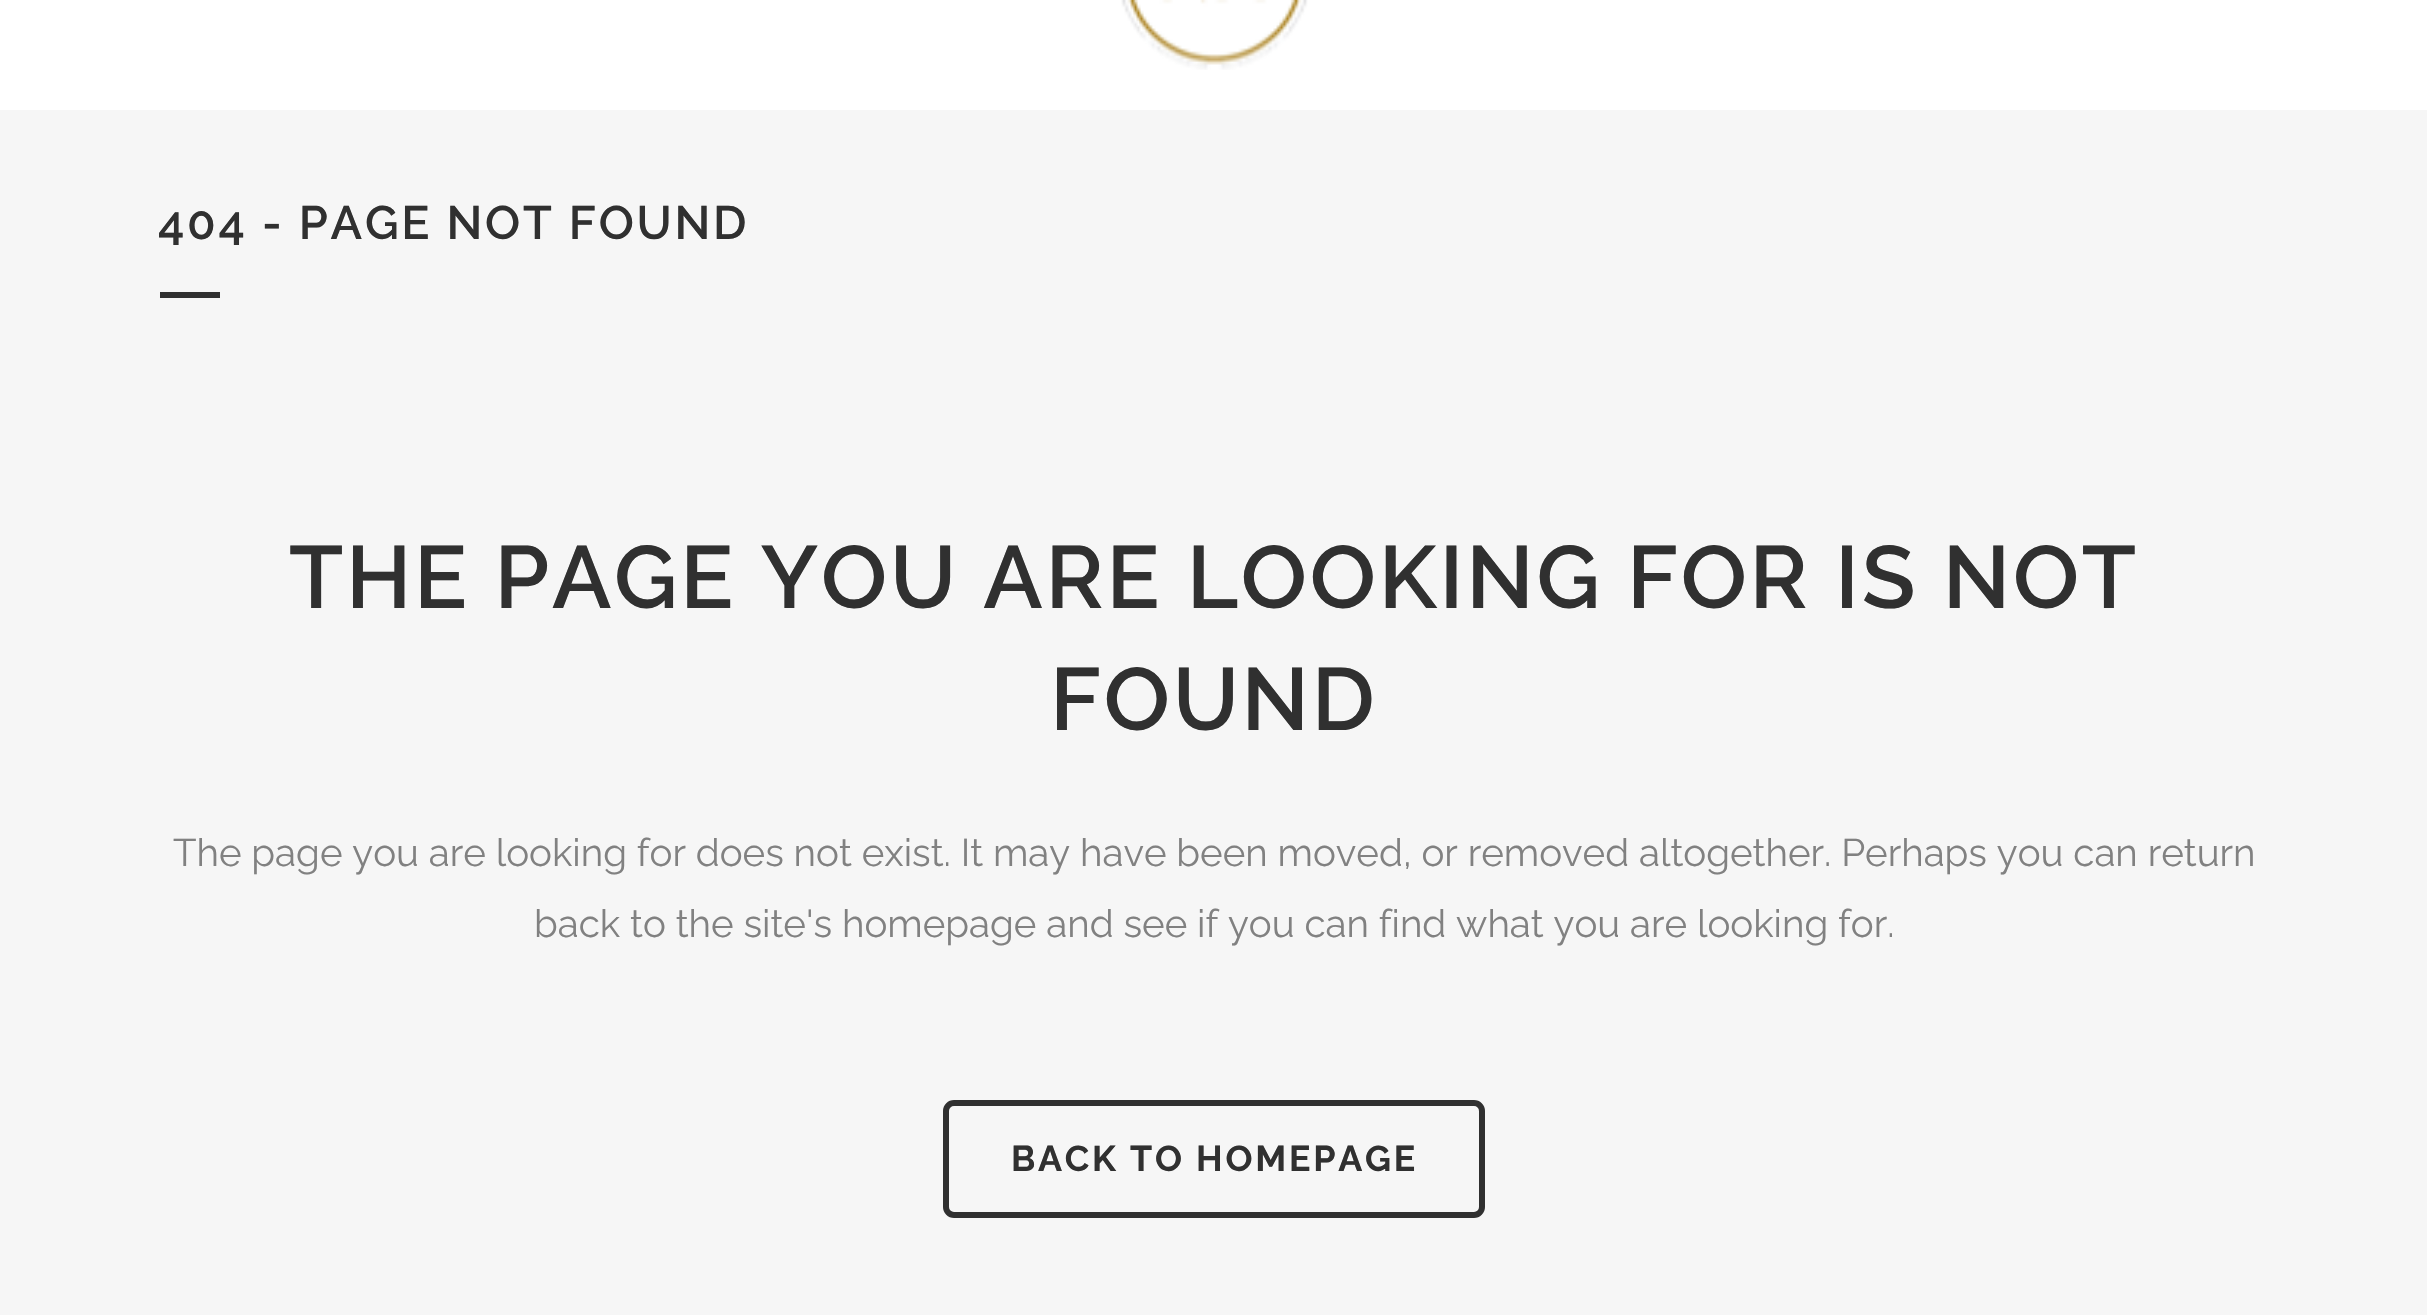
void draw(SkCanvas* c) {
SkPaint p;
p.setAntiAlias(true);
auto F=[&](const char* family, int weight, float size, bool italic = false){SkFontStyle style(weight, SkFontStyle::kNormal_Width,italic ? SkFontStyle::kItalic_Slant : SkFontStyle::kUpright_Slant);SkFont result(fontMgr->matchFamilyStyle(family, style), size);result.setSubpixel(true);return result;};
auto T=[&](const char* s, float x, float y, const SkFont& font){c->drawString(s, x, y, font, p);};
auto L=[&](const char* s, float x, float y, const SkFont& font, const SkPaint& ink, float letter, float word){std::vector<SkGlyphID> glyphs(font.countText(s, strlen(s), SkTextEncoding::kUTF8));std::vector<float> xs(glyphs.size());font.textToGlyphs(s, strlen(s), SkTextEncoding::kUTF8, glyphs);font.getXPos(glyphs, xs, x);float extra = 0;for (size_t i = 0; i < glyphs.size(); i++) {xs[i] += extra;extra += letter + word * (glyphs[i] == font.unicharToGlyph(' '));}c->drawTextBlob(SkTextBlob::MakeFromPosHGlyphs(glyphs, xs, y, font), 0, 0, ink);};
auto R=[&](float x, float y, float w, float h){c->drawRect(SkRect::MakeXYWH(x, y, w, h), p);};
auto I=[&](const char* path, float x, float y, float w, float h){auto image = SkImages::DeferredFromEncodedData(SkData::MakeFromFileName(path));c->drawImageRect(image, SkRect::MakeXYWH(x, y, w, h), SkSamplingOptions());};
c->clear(0xfff6f6f6);
p.setColor(0xffffffff);
R(0,0,2427,110);
I("1.png",1121,0,187,70);
auto f1 = F("Raleway",600,46.75);
p.setColor(0xff303030);
L("404 - PAGE NOT FOUND",158,239,f1,p,2.75,0);
R(160,292,60,6);
auto f2 = F("Raleway",600,88);
L("THE PAGE YOU ARE LOOKING FOR IS NOT",289,608,f2,p,2.75,0);
L("FOUND",1050,730,f2,p,2.75,0);
auto f3 = F("Raleway",400,38.5);
p.setColor(0xff818181);
T("The page you are looking for does not exist. It may have been moved, or removed altogether. Perhaps you can return",173,866,f3);
T("back to the site's homepage and see if you can find what you are looking for.",534,937,f3);
p.setStroke(true);
p.setStrokeWidth(6);
p.setColor(0xff303030);
c->drawRoundRect(SkRect::MakeXYWH(946,1103,536,112),8,8,p);
auto f4 = F("Raleway",700,35.75);
p.setStroke(false);
L("BACK TO HOMEPAGE",1011,1171,f4,p,2.75,0);
}
